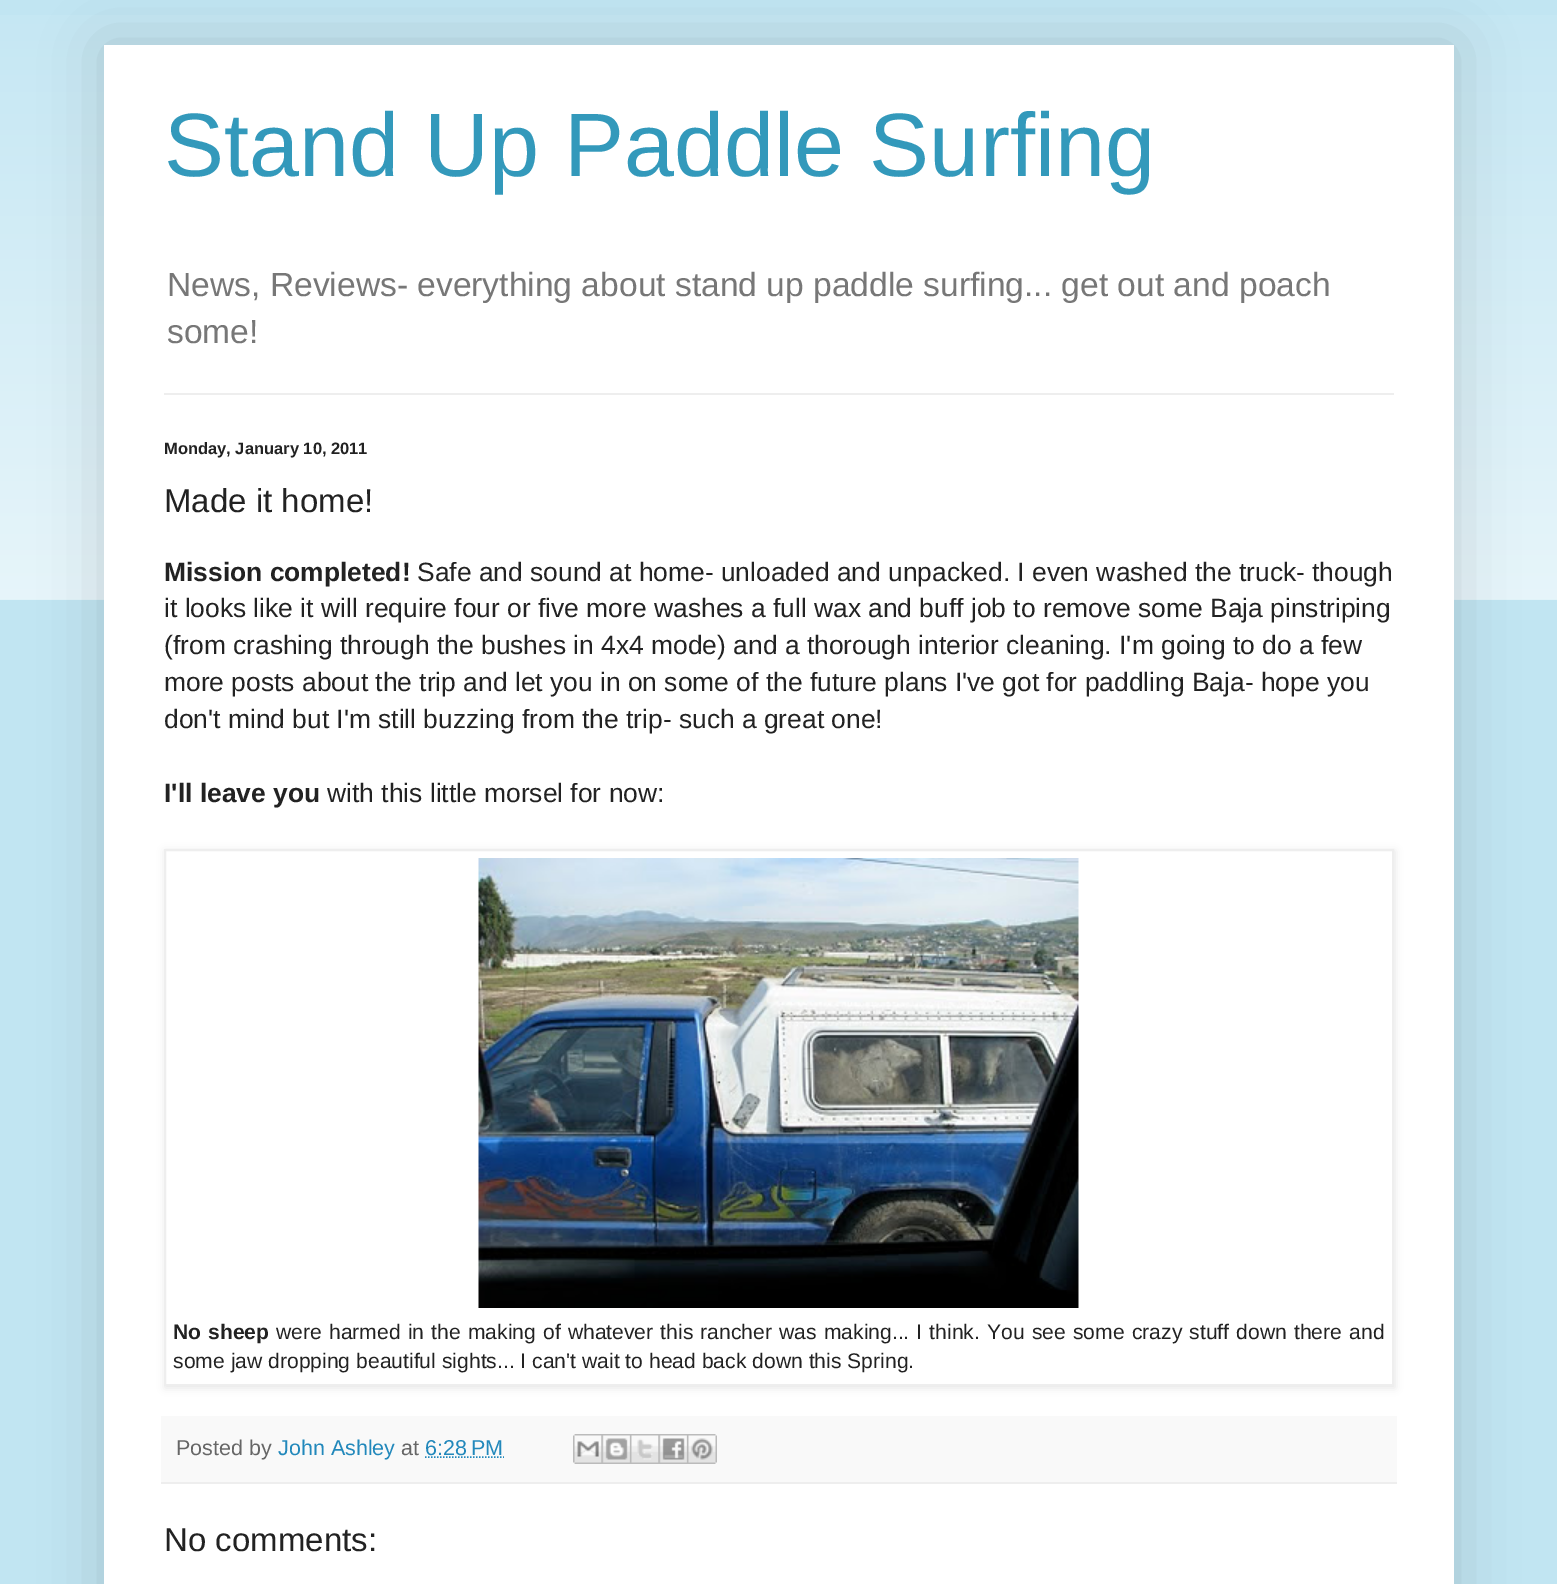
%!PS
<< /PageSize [1557 1584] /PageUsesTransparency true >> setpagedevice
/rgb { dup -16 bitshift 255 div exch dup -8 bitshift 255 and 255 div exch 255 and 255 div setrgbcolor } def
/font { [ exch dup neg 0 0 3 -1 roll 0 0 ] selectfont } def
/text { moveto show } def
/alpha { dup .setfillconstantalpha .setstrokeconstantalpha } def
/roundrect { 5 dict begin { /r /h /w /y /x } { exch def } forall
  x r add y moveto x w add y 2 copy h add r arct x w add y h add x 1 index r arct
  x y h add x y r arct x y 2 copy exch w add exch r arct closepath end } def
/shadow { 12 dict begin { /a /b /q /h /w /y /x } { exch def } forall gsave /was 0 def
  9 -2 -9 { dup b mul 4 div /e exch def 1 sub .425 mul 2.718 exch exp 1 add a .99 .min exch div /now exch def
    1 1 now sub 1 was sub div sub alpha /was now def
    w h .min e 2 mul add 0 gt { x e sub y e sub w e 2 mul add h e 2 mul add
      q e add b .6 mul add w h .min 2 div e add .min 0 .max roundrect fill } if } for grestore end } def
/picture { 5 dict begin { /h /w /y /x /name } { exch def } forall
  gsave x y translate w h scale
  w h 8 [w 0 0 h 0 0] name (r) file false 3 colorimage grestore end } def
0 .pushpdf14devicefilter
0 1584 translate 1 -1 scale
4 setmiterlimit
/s1 { /LiberationSans-Regular 90 font 16#3399BB rgb } def
/s2 { /LiberationSans-Regular 33.6 font 16#777777 rgb } def
/s3 { /LiberationSans-Bold 16.5 font 16#222222 rgb } def
/s4 { /LiberationSans-Regular 33 font 16#222222 rgb } def
/s5 { /LiberationSans-Bold 26.4 font 16#222222 rgb } def
/s6 { /LiberationSans-Regular 26.4 font 16#222222 rgb } def
/s7 { /LiberationSans-Regular 21.12 font 16#222222 rgb } def
/s8 { /LiberationSans-Regular 21.5 font 16#666666 rgb } def
/s9 { /LiberationSans-Regular 21.5 font 16#2288BB rgb } def
16#C1E5F2 rgb
0 0 1557 1584 rectfill
(pic1.raw) 0 15 1557 585 picture
16#000000 rgb
104 45 1350 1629 0 30 0.15 shadow
16#FFFFFF rgb
104 45 1350 1539 rectfill
s1
(Stand Up Paddle Surfing) 164 176 text
s2
(News, Reviews- everything about stand up paddle surfing... get out and poach) 167 296 text
(some!) 167 343 text
16#EEEEEE rgb
164 393 1230 2 rectfill
s3
(Monday, January 10, 2011) 164 454 text
s4
(Made it home!) 164 512 text
s5
(Mission completed!) 164 581 text
s6
(Safe and sound at home- unloaded and unpacked. I even washed the truck- though) 417 581 text
(it looks like it will require four or five more washes a full wax and buff job to remove some Baja pinstriping) 164 617 text
(\(from crashing through the bushes in 4x4 mode\) and a thorough interior cleaning. I'm going to do a few) 164 654 text
(more posts about the trip and let you in on some of the future plans I've got for paddling Baja- hope you) 164 691 text
(don't mind but I'm still buzzing from the trip- such a great one!) 164 728 text
s5
(I'll leave you) 164 802 text
s6
(with this little morsel for now:) 327 802 text
16#000000 rgb
165 851 1230 537 0 4 0.1 shadow
16#FFFFFF rgb
165 850 moveto 1393 850 lineto 1393 1385 lineto 165 1385 lineto closepath gsave fill grestore
16#EEEEEE rgb
2 setlinewidth
stroke
(pic2.raw) 478 858 601 450 picture
/LiberationSans-Bold 21.12 font
16#222222 rgb
173 1339 moveto 1 0 32 (No sheep) widthshow
/LiberationSans-Regular 21.12 font
276 1339 moveto 1.25 0 32 (were harmed in the making of whatever this rancher was making... I think. You see some crazy stuff down there and) widthshow
(some jaw dropping beautiful sights... I can't wait to head back down this Spring.) 173 1368 text
16#F9F9F9 rgb
161 1416 1236 66 rectfill
16#EEEEEE rgb
161 1482 1236 2 rectfill
s8
(Posted by) 176 1455 text
s9
(John Ashley) 278 1455 text
s8
(at) 401 1455 text
s9
(6:28 PM) 425 1455 text
1.5 setlinewidth
[1.5 1.5] 0 setdash
425 1457 moveto 504 1457 lineto stroke
(pic3.raw) 573 1434 29 30 picture
(pic4.raw) 601 1434 29 30 picture
(pic5.raw) 630 1434 29 30 picture
(pic6.raw) 658 1434 29 30 picture
(pic7.raw) 687 1434 30 30 picture
s4
(No comments:) 164 1551 text
.poppdf14devicefilter showpage
